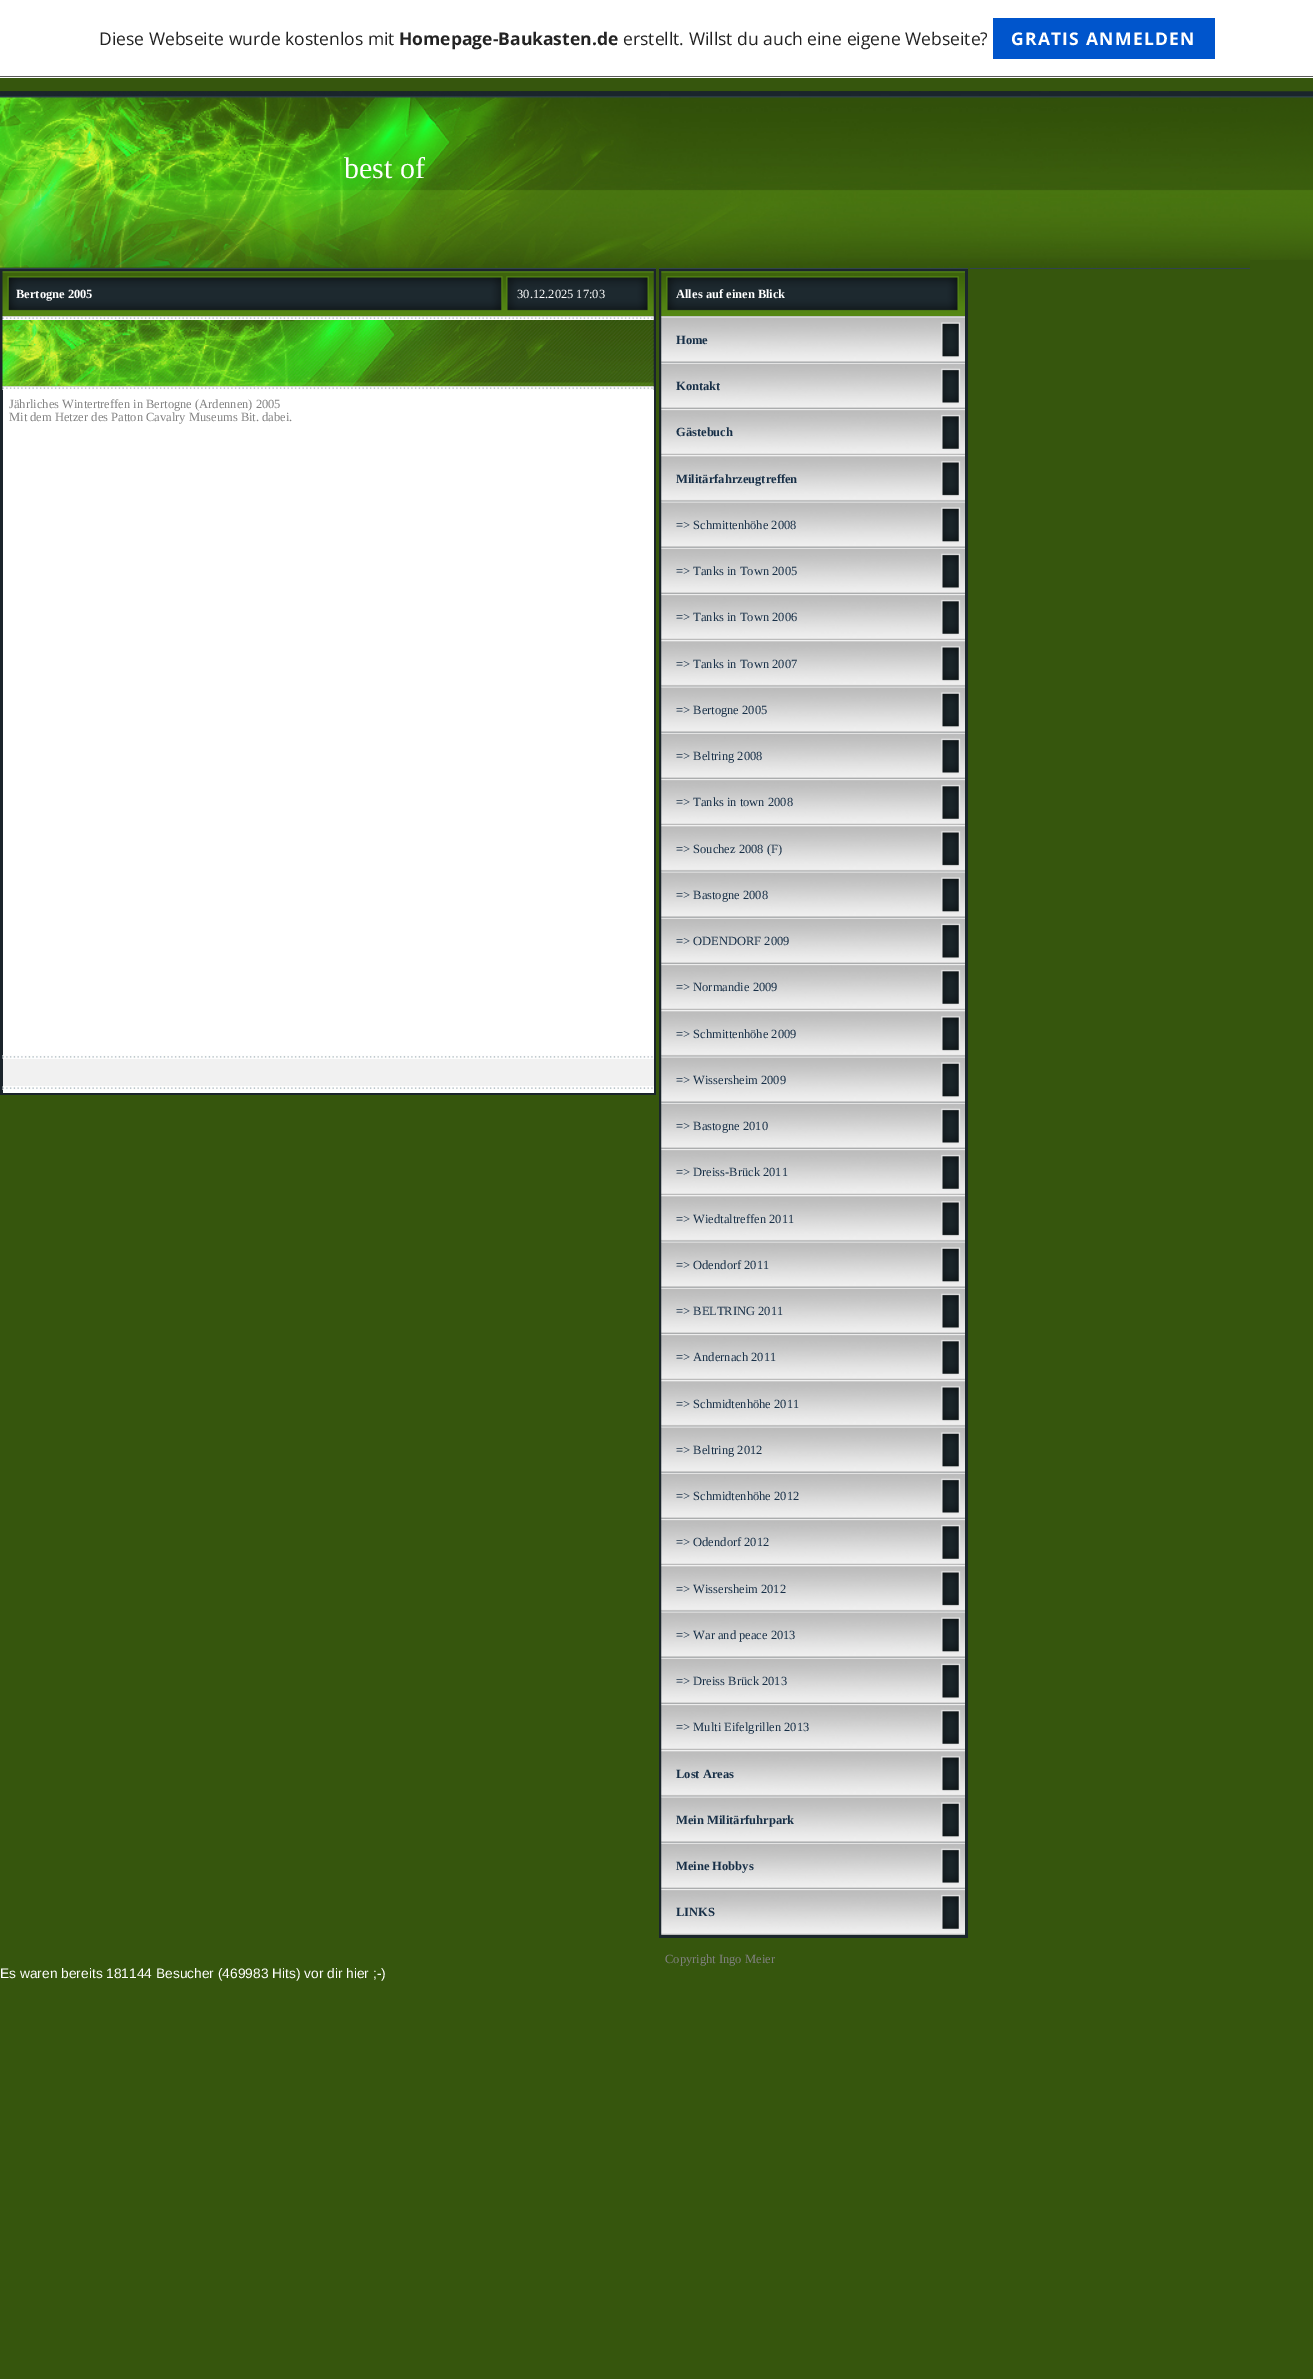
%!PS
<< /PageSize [1313 2379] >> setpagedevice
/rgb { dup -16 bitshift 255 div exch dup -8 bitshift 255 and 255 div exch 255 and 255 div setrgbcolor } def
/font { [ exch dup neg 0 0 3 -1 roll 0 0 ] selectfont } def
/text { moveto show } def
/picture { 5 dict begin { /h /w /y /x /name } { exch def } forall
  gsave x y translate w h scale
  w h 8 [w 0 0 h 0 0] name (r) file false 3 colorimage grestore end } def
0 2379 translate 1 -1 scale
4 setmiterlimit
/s1 { /OpenSans-Regular 17.5 font 16#232323 rgb } def
/s2 { /OpenSans-Bold 17.5 font 16#232323 rgb } def
/s3 { /LiberationSerif-Regular 30 font 16#FFFFFF rgb } def
/s4 { /LiberationSerif-Bold 12.5 font 16#FFFFFF rgb } def
/s5 { /LiberationSerif-Regular 12.5 font 16#FFFFFF rgb } def
/s6 { /LiberationSerif-Regular 12.5 font 16#818181 rgb } def
/s7 { /LiberationSerif-Bold 12.5 font 16#172F47 rgb } def
/s8 { /LiberationSerif-Regular 12.5 font 16#172F47 rgb } def
/s9 { /LiberationSans-Regular 13.75 font 16#FFFFFF rgb } def
16#36560D rgb
0 0 1313 2379 rectfill
16#FFFFFF rgb
0 0 1313 78 rectfill
16#5A5A5A rgb
0 76 1313 1 rectfill
s1
(Diese Webseite wurde kostenlos mit) 99 45 text
s2
(Homepage-Baukasten.de) 399 45 text
s1
(erstellt. Willst du auch eine eigene Webseite?) 623 45 text
16#0055CC rgb
993 18 222 41 rectfill
/OpenSans-Bold 17.5 font
16#FFFFFF rgb
1011 45 moveto 1.25 0 (GRATIS ANMELDEN) ashow
(pic1.raw) 0 91 1313 169 picture
(pic2.raw) 0 91 1250 177 picture
s3
(best of) 344 178 text
16#31434D rgb
0 268 656 1 rectfill
659 268 309 1 rectfill
970 268 280 1 rectfill
16#1B242B rgb
0 269 656 826 rectfill
(pic3.raw) 2 271 652 46 picture
s4
(Bertogne 2005) 16 298 text
s5
(30.12.2025 17:03) 517 298 text
(pic4.raw) 2 316 652 4 picture
(pic5.raw) 2 320 652 67 picture
(pic6.raw) 2 386 652 4 picture
3 390 651 669 rectfill
s6
(Jährliches Wintertreffen in Bertogne \(Ardennen\) 2005) 9 408 text
(Mit dem Hetzer des Patton Cavalry Museums Bit. dabei.) 9 421 text
(pic7.raw) 2 1055 651 4 picture
16#F1F1F1 rgb
3 1059 651 27 rectfill
16#FFFFFF rgb
3 1086 651 7 rectfill
(pic8.raw) 2 1086 651 4 picture
16#1B262C rgb
659 269 309 1669 rectfill
(pic9.raw) 661 271 304 46 picture
s4
(Alles auf einen Blick) 676 298 text
(pic10.raw) 661 316 304 47 picture
s7
(Home) 676 344 text
(pic11.raw) 661 362 304 47 picture
(Kontakt) 676 390 text
(pic12.raw) 661 408 304 47 picture
(Gästebuch) 676 436 text
(pic13.raw) 661 455 304 47 picture
(Militärfahrzeugtreffen) 676 483 text
(pic14.raw) 661 501 304 47 picture
s8
(=> Schmittenhöhe 2008) 676 529 text
(pic11.raw) 661 547 304 47 picture
(=> Tanks in Town 2005) 676 575 text
(pic12.raw) 661 593 304 47 picture
(=> Tanks in Town 2006) 676 621 text
(pic13.raw) 661 640 304 47 picture
(=> Tanks in Town 2007) 676 668 text
(pic14.raw) 661 686 304 47 picture
(=> Bertogne 2005) 676 714 text
(pic11.raw) 661 732 304 47 picture
(=> Beltring 2008) 676 760 text
(pic15.raw) 661 778 304 47 picture
(=> Tanks in town 2008) 676 806 text
(pic13.raw) 661 825 304 47 picture
(=> Souchez 2008 \(F\)) 676 853 text
(pic14.raw) 661 871 304 47 picture
(=> Bastogne 2008) 676 899 text
(pic11.raw) 661 917 304 47 picture
(=> ODENDORF 2009) 676 945 text
(pic12.raw) 661 963 304 47 picture
(=> Normandie 2009) 676 991 text
(pic13.raw) 661 1010 304 47 picture
(=> Schmittenhöhe 2009) 676 1038 text
(pic14.raw) 661 1056 304 47 picture
(=> Wissersheim 2009) 676 1084 text
(pic11.raw) 661 1102 304 47 picture
(=> Bastogne 2010) 676 1130 text
(pic16.raw) 661 1148 304 47 picture
(=> Dreiss-Brück 2011) 676 1176 text
(pic13.raw) 661 1195 304 47 picture
(=> Wiedtaltreffen 2011) 676 1223 text
(pic14.raw) 661 1241 304 47 picture
(=> Odendorf 2011) 676 1269 text
(pic11.raw) 661 1287 304 47 picture
(=> BELTRING 2011) 676 1315 text
(pic12.raw) 661 1333 304 47 picture
(=> Andernach 2011) 676 1361 text
(pic13.raw) 661 1380 304 47 picture
(=> Schmidtenhöhe 2011) 676 1408 text
(pic14.raw) 661 1426 304 47 picture
(=> Beltring 2012) 676 1454 text
(pic11.raw) 661 1472 304 47 picture
(=> Schmidtenhöhe 2012) 676 1500 text
(pic12.raw) 661 1518 304 47 picture
(=> Odendorf 2012) 676 1546 text
(pic13.raw) 661 1565 304 47 picture
(=> Wissersheim 2012) 676 1593 text
(pic14.raw) 661 1611 304 47 picture
(=> War and peace 2013) 676 1639 text
(pic11.raw) 661 1657 304 47 picture
(=> Dreiss Brück 2013) 676 1685 text
(pic12.raw) 661 1703 304 47 picture
(=> Multi Eifelgrillen 2013) 676 1731 text
(pic13.raw) 661 1750 304 47 picture
s7
(Lost Areas) 676 1778 text
(pic14.raw) 661 1796 304 47 picture
(Mein Militärfuhrpark) 676 1824 text
(pic17.raw) 661 1842 304 47 picture
(Meine Hobbys) 676 1870 text
(pic12.raw) 661 1888 304 47 picture
(LINKS) 676 1916 text
s6
(Copyright Ingo Meier) 665 1963 text
s9
(Es waren bereits 181144 Besucher \(469983 Hits\) vor dir hier ;-\)) 0 1978 text
showpage
